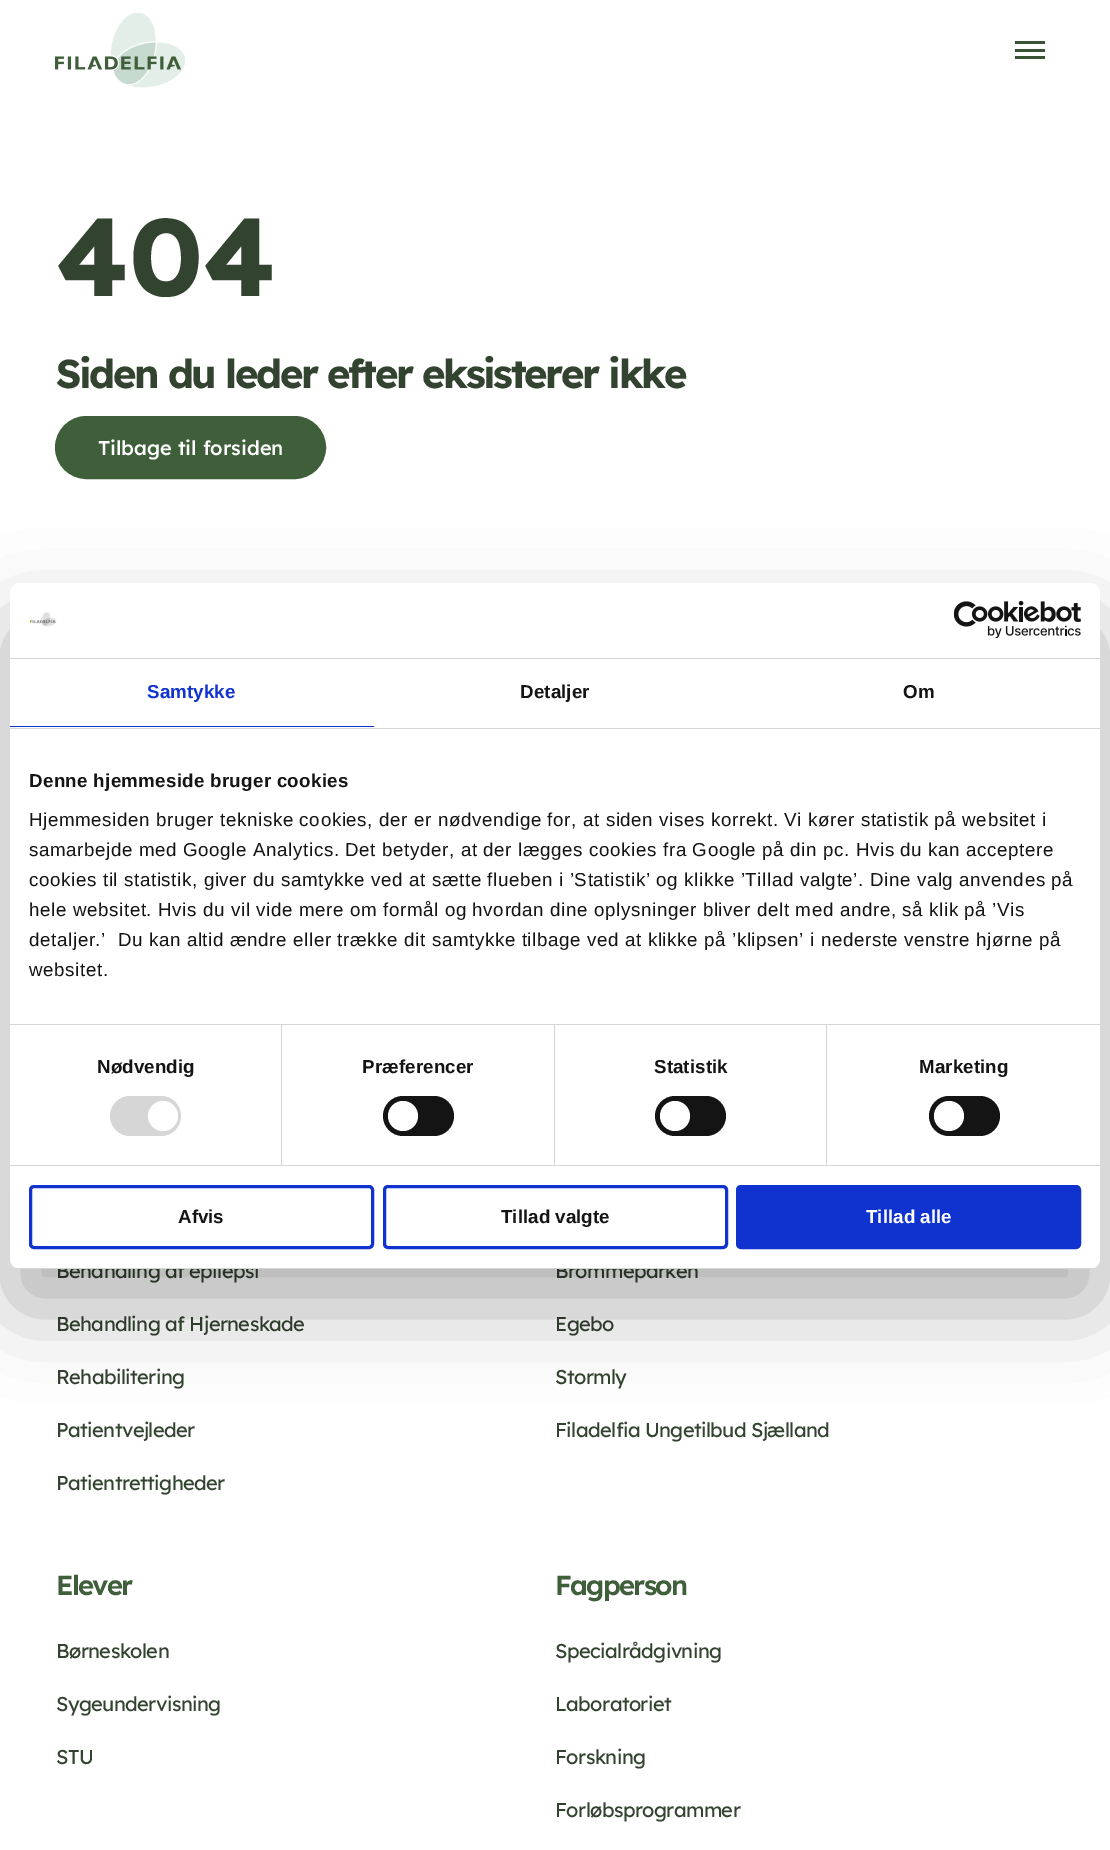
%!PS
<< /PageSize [1110 1850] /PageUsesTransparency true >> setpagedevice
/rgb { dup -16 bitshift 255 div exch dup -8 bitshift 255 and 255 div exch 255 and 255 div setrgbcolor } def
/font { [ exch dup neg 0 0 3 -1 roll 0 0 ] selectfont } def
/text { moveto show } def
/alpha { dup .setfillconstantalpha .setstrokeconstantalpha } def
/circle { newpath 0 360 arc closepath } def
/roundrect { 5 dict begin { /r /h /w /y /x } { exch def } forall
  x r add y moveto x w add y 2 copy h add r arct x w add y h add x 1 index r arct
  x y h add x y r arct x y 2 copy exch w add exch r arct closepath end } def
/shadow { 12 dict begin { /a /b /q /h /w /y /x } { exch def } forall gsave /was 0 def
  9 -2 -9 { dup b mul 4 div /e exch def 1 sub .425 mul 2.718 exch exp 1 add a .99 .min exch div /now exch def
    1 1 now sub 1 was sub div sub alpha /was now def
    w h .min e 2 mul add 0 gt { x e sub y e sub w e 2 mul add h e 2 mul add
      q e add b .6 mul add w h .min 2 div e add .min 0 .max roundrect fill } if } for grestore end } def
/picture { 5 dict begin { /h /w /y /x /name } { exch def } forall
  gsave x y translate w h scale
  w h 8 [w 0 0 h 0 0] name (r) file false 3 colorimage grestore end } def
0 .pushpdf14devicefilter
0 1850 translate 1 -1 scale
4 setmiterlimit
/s1 { /Lexend-Bold 110 font 16#32432F rgb } def
/s2 { /Lexend-Medium 20 font 16#FFFFFF rgb } def
/s3 { /LiberationSans-Bold 18.75 font 16#141414 rgb } def
/s4 { /LiberationSans-Bold 18.75 font 16#FFFFFF rgb } def
16#FFFFFF rgb
0 0 1110 1850 rectfill
(pic1.raw) 55 13 130 75 picture
16#385434 rgb
1015 41 30 3 rectfill
1015 49 30 3 rectfill
1015 56 30 3 rectfill
s1
(404) 56 296 text
/Lexend-Bold 40 font
56 388 moveto -2.4 0 (Siden du leder efter eksisterer ikke) ashow
16#3F5E3A rgb
56.5 417.5 268 60 30 roundrect gsave fill grestore
3 setlinewidth
stroke
s2
(Tilbage til forsiden) 98 455 text
/Lexend-Regular 20 font
16#32432F rgb
56 1278 moveto -0.6 0 (Behandling af epilepsi) ashow
56 1331 moveto -0.6 0 (Behandling af Hjerneskade) ashow
56 1384 moveto -0.6 0 (Rehabilitering) ashow
56 1437 moveto -0.6 0 (Patientvejleder) ashow
56 1490 moveto -0.6 0 (Patientrettigheder) ashow
555 1278 moveto -0.6 0 (Brommeparken) ashow
555 1331 moveto -0.6 0 (Egebo) ashow
555 1384 moveto -0.6 0 (Stormly) ashow
555 1437 moveto -0.6 0 (Filadelfia Ungetilbud Sjælland) ashow
/Lexend-SemiBold 27.5 font
16#3F5E3A rgb
56 1595 moveto -1.75 0 (Elever) ashow
/Lexend-Regular 20 font
16#32432F rgb
56 1658 moveto -0.6 0 (Børneskolen) ashow
56 1711 moveto -0.6 0 (Sygeundervisning) ashow
56 1764 moveto -0.6 0 (STU) ashow
/Lexend-SemiBold 27.5 font
16#3F5E3A rgb
555 1595 moveto -1.75 0 (Fagperson) ashow
/Lexend-Regular 20 font
16#32432F rgb
555 1658 moveto -0.6 0 (Specialrådgivning) ashow
555 1711 moveto -0.6 0 (Laboratoriet) ashow
555 1764 moveto -0.6 0 (Forskning) ashow
555 1817 moveto -0.6 0 (Forløbsprogrammer) ashow
16#000000 rgb
10 623 1090 686 10 42.5 0.3 shadow
16#FFFFFF rgb
10 583 1090 686 10 roundrect fill
16#D6D6D6 rgb
10 658 1090 1 rectfill
(pic2.raw) 29 612 28 15 picture
(pic3.raw) 954 601 127 38 picture
10 728 1090 1 rectfill
16#1032CF rgb
10 726 364 1 rectfill
/LiberationSans-Bold 18.75 font
147 698 moveto 0.1 0 (Samtykke) ashow
16#141414 rgb
520 698 moveto 0.1 0 (Detaljer) ashow
903 698 moveto 0.1 0 (Om) ashow
16#D6D6D6 rgb
10 1024 1090 1 rectfill
16#141414 rgb
29 787 moveto 0.3 0 (Denne hjemmeside bruger cookies) ashow
/LiberationSans-Regular 18.75 font
29 826 moveto 0.62 0 (Hjemmesiden bruger tekniske cookies, der er nødvendige for, at siden vises korrekt. Vi kører statistik på websitet i) ashow
29 856 moveto 0.62 0 (samarbejde med Google Analytics. Det betyder, at der lægges cookies fra Google på din pc. Hvis du kan acceptere) ashow
29 886 moveto 0.62 0 (cookies til statistik, giver du samtykke ved at sætte flueben i ’Statistik’ og klikke ’Tillad valgte’. Dine valg anvendes på) ashow
29 916 moveto 0.62 0 (hele websitet. Hvis du vil vide mere om formål og hvordan dine oplysninger bliver delt med andre, så klik på ’Vis) ashow
29 946 moveto 0.62 0 (detaljer.’  Du kan altid ændre eller trække dit samtykke tilbage ved at klikke på ’klipsen’ i nederste venstre hjørne på) ashow
29 976 moveto 0.62 0 (websitet.) ashow
16#D6D6D6 rgb
10 1165 1090 1 rectfill
281 1025 1 140 rectfill
/LiberationSans-Bold 18.75 font
16#141414 rgb
97 1073 moveto 0.1 0 (Nødvendig) ashow
16#D6D6D6 rgb
110 1096 71 40 20 roundrect fill
16#FFFFFF rgb
163 1116 15 circle fill
16#D6D6D6 rgb
554 1025 1 140 rectfill
16#141414 rgb
362 1073 moveto 0.1 0 (Præferencer) ashow
383 1096 71 40 20 roundrect fill
16#FFFFFF rgb
403 1116 15 circle fill
16#D6D6D6 rgb
826 1025 1 140 rectfill
16#141414 rgb
654 1073 moveto 0.1 0 (Statistik) ashow
655 1096 71 40 20 roundrect fill
16#FFFFFF rgb
675 1116 15 circle fill
16#141414 rgb
919 1073 moveto 0.1 0 (Marketing) ashow
929 1096 71 40 20 roundrect fill
16#FFFFFF rgb
949 1116 15 circle fill
gsave
10 583 1090 686 10 roundrect clip newpath
16#D6D6D6 rgb
10 1268 1090 1 rectfill
grestore
16#1032CF rgb
30.5 1186.5 342 61 3.5 roundrect stroke
s3
(Afvis) 178 1223 text
16#1032CF rgb
384.5 1186.5 342 61 3.5 roundrect stroke
s3
(Tillad valgte) 501 1223 text
16#1032CF rgb
737.5 1186.5 342 61 3.5 roundrect gsave fill grestore
stroke
s4
(Tillad alle) 866 1223 text
.poppdf14devicefilter showpage
